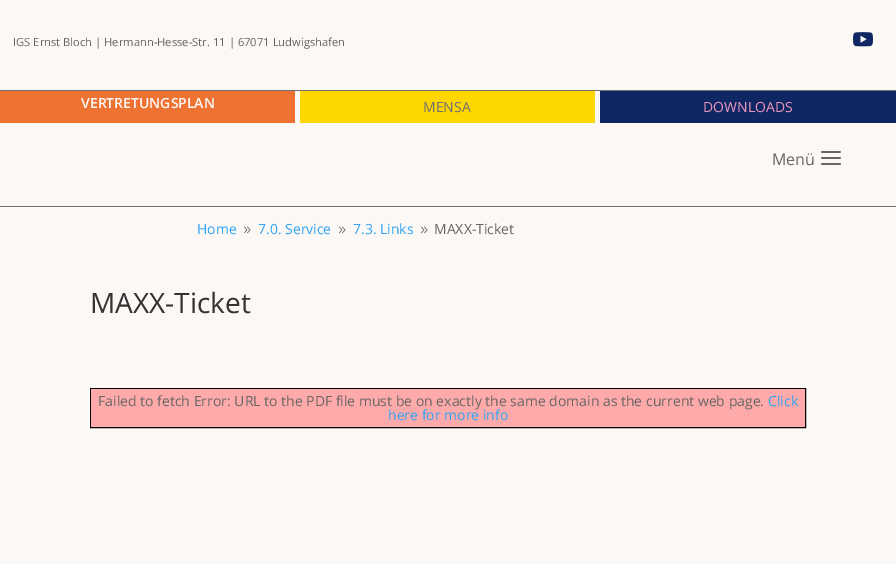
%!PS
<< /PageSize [896 564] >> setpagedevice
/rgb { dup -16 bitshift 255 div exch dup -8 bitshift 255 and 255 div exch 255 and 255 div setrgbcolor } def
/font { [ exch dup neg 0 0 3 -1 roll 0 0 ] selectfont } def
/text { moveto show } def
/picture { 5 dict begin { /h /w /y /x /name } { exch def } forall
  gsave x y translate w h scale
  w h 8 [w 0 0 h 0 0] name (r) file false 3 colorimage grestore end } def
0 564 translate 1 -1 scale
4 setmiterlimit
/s1 { /OpenSans-Regular 11.2 font 16#666666 rgb } def
/s2 { /OpenSans-SemiBold 14 font 16#FCF8F6 rgb } def
/s3 { /OpenSans-Regular 14 font 16#707070 rgb } def
/s4 { /OpenSans-Regular 14 font 16#EC96BD rgb } def
/s5 { /OpenSans-Regular 16 font 16#666666 rgb } def
/s6 { /OpenSans-Regular 14 font 16#2EA3F2 rgb } def
/s7 { /OpenSans-Regular 14 font 16#666666 rgb } def
/s8 { /OpenSans-Regular 28 font 16#333333 rgb } def
16#FCF8F6 rgb
0 0 896 564 rectfill
16#707070 rgb
0 90 896 1 rectfill
s1
(IGS Ernst Bloch | Hermann-Hesse-Str. 11 | 67071 Ludwigshafen) 13 46 text
(pic1.raw) 853 32 20 15 picture
16#EE7231 rgb
0 91 295 32 rectfill
s2
(VERTRETUNGSPLAN) 81 108 text
16#FFD700 rgb
300 91 295 32 rectfill
s3
(MENSA) 423 112 text
16#0F2762 rgb
600 91 296 32 rectfill
s4
(DOWNLOADS) 703 112 text
16#707070 rgb
0 206 896 1 rectfill
s5
(Menü) 772 165 text
(pic2.raw) 821 151 20 14 picture
s6
(Home) 197 234 text
(pic3.raw) 244 226 7 8 picture
(7.0. Service) 258 234 text
(pic3.raw) 339 226 7 8 picture
(7.3. Links) 353 234 text
(pic3.raw) 421 226 7 8 picture
s7
(MAXX-Ticket) 434 234 text
s8
(MAXX-Ticket) 90 313 text
16#000000 rgb
90.5 388.5 715 39 rectstroke
16#FFAAAA rgb
91 389 714 38 rectfill
s7
(Failed to fetch Error: URL to the PDF file must be on exactly the same domain as the current web page.) 98 406 text
s6
(Click) 768 406 text
(here for more info) 388 420 text
showpage
